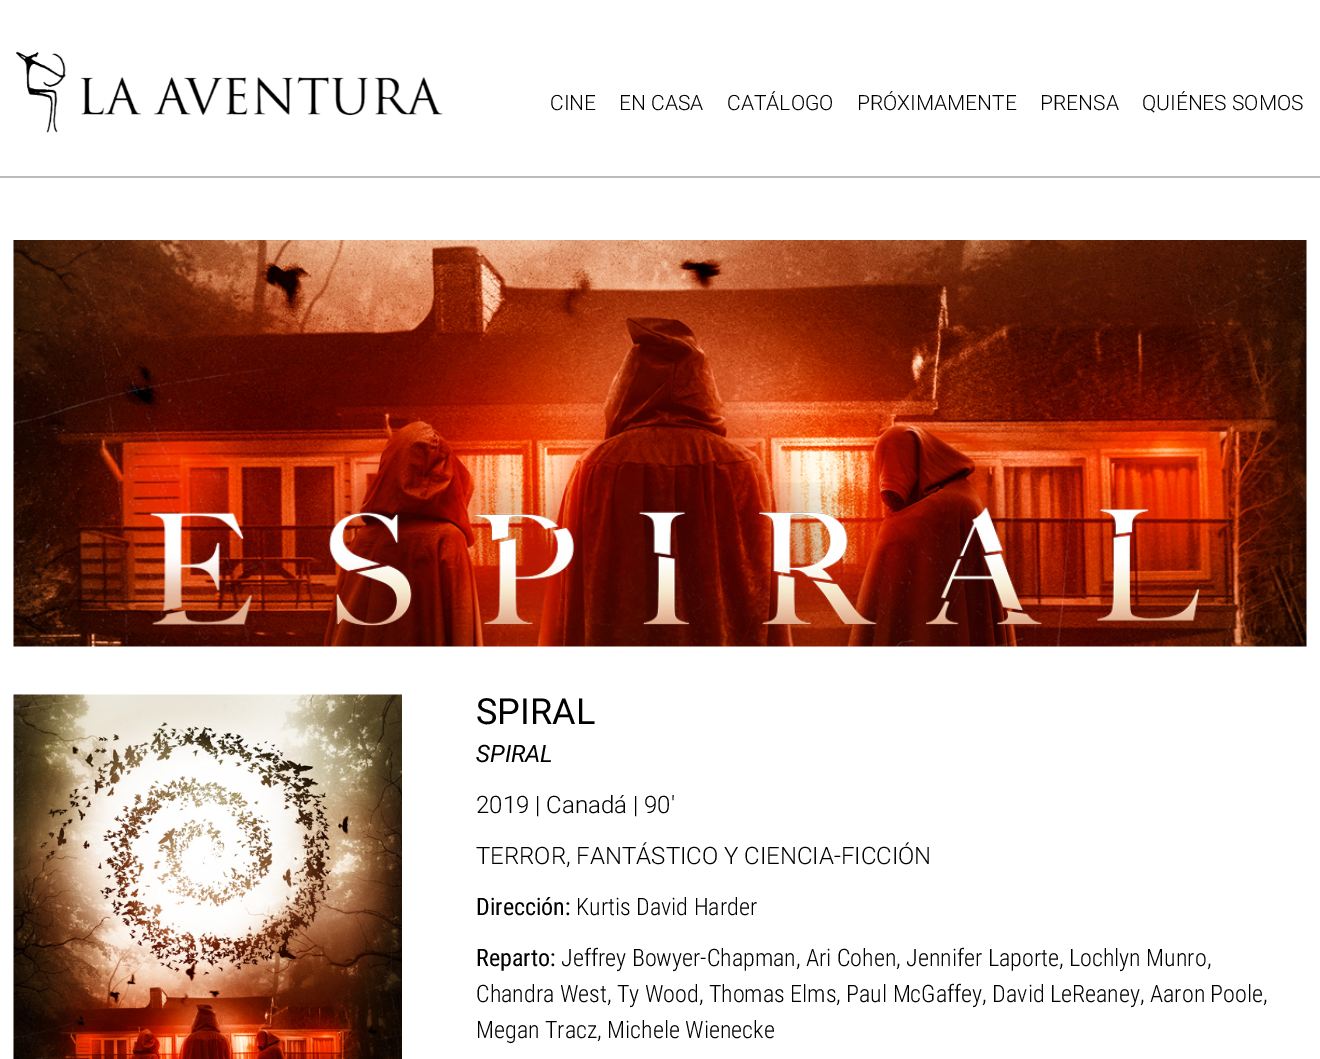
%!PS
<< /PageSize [1320 1059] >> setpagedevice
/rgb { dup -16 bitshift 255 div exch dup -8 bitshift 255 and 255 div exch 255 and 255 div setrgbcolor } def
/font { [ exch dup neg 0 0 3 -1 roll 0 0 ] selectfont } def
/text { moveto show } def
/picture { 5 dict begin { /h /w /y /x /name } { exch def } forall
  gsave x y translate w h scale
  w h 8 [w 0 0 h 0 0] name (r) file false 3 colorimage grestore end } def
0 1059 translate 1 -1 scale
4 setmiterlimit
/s1 { /Roboto-Light 21 font 16#000000 rgb } def
/s2 { /Roboto-Regular 36 font 16#000000 rgb } def
/s3 { /Roboto-Italic 24 font 16#000000 rgb } def
/s4 { /Roboto-Light 24 font 16#000000 rgb } def
/s5 { /RobotoCondensed-Regular 24 font 16#000000 rgb } def
/s6 { /RobotoCondensed-Light 24 font 16#000000 rgb } def
16#FFFFFF rgb
0 0 1320 1059 rectfill
16#BBBBBB rgb
0 176 1320 2 rectfill
(pic1.raw) 15 51 428 82 picture
s1
(CINE) 550 110 text
(EN CASA) 619 110 text
(CATÁLOGO) 727 110 text
(PRÓXIMAMENTE) 857 110 text
(PRENSA) 1040 110 text
(QUIÉNES SOMOS) 1142 110 text
(pic2.raw) 13 240 1294 407 picture
(pic3.raw) 13 694 389 365 picture
s2
(SPIRAL) 476 724 text
s3
(SPIRAL) 476 762 text
s4
(2019 | Canadá | 90') 476 813 text
(TERROR, FANTÁSTICO Y CIENCIA-FICCIÓN) 476 864 text
s5
(Dirección:) 476 915 text
s6
(Kurtis David Harder) 576 915 text
s5
(Reparto:) 476 966 text
s6
(Jeffrey Bowyer-Chapman, Ari Cohen, Jennifer Laporte, Lochlyn Munro,) 561 966 text
(Chandra West, Ty Wood, Thomas Elms, Paul McGaffey, David LeReaney, Aaron Poole,) 476 1002 text
(Megan Tracz, Michele Wienecke) 476 1038 text
showpage
